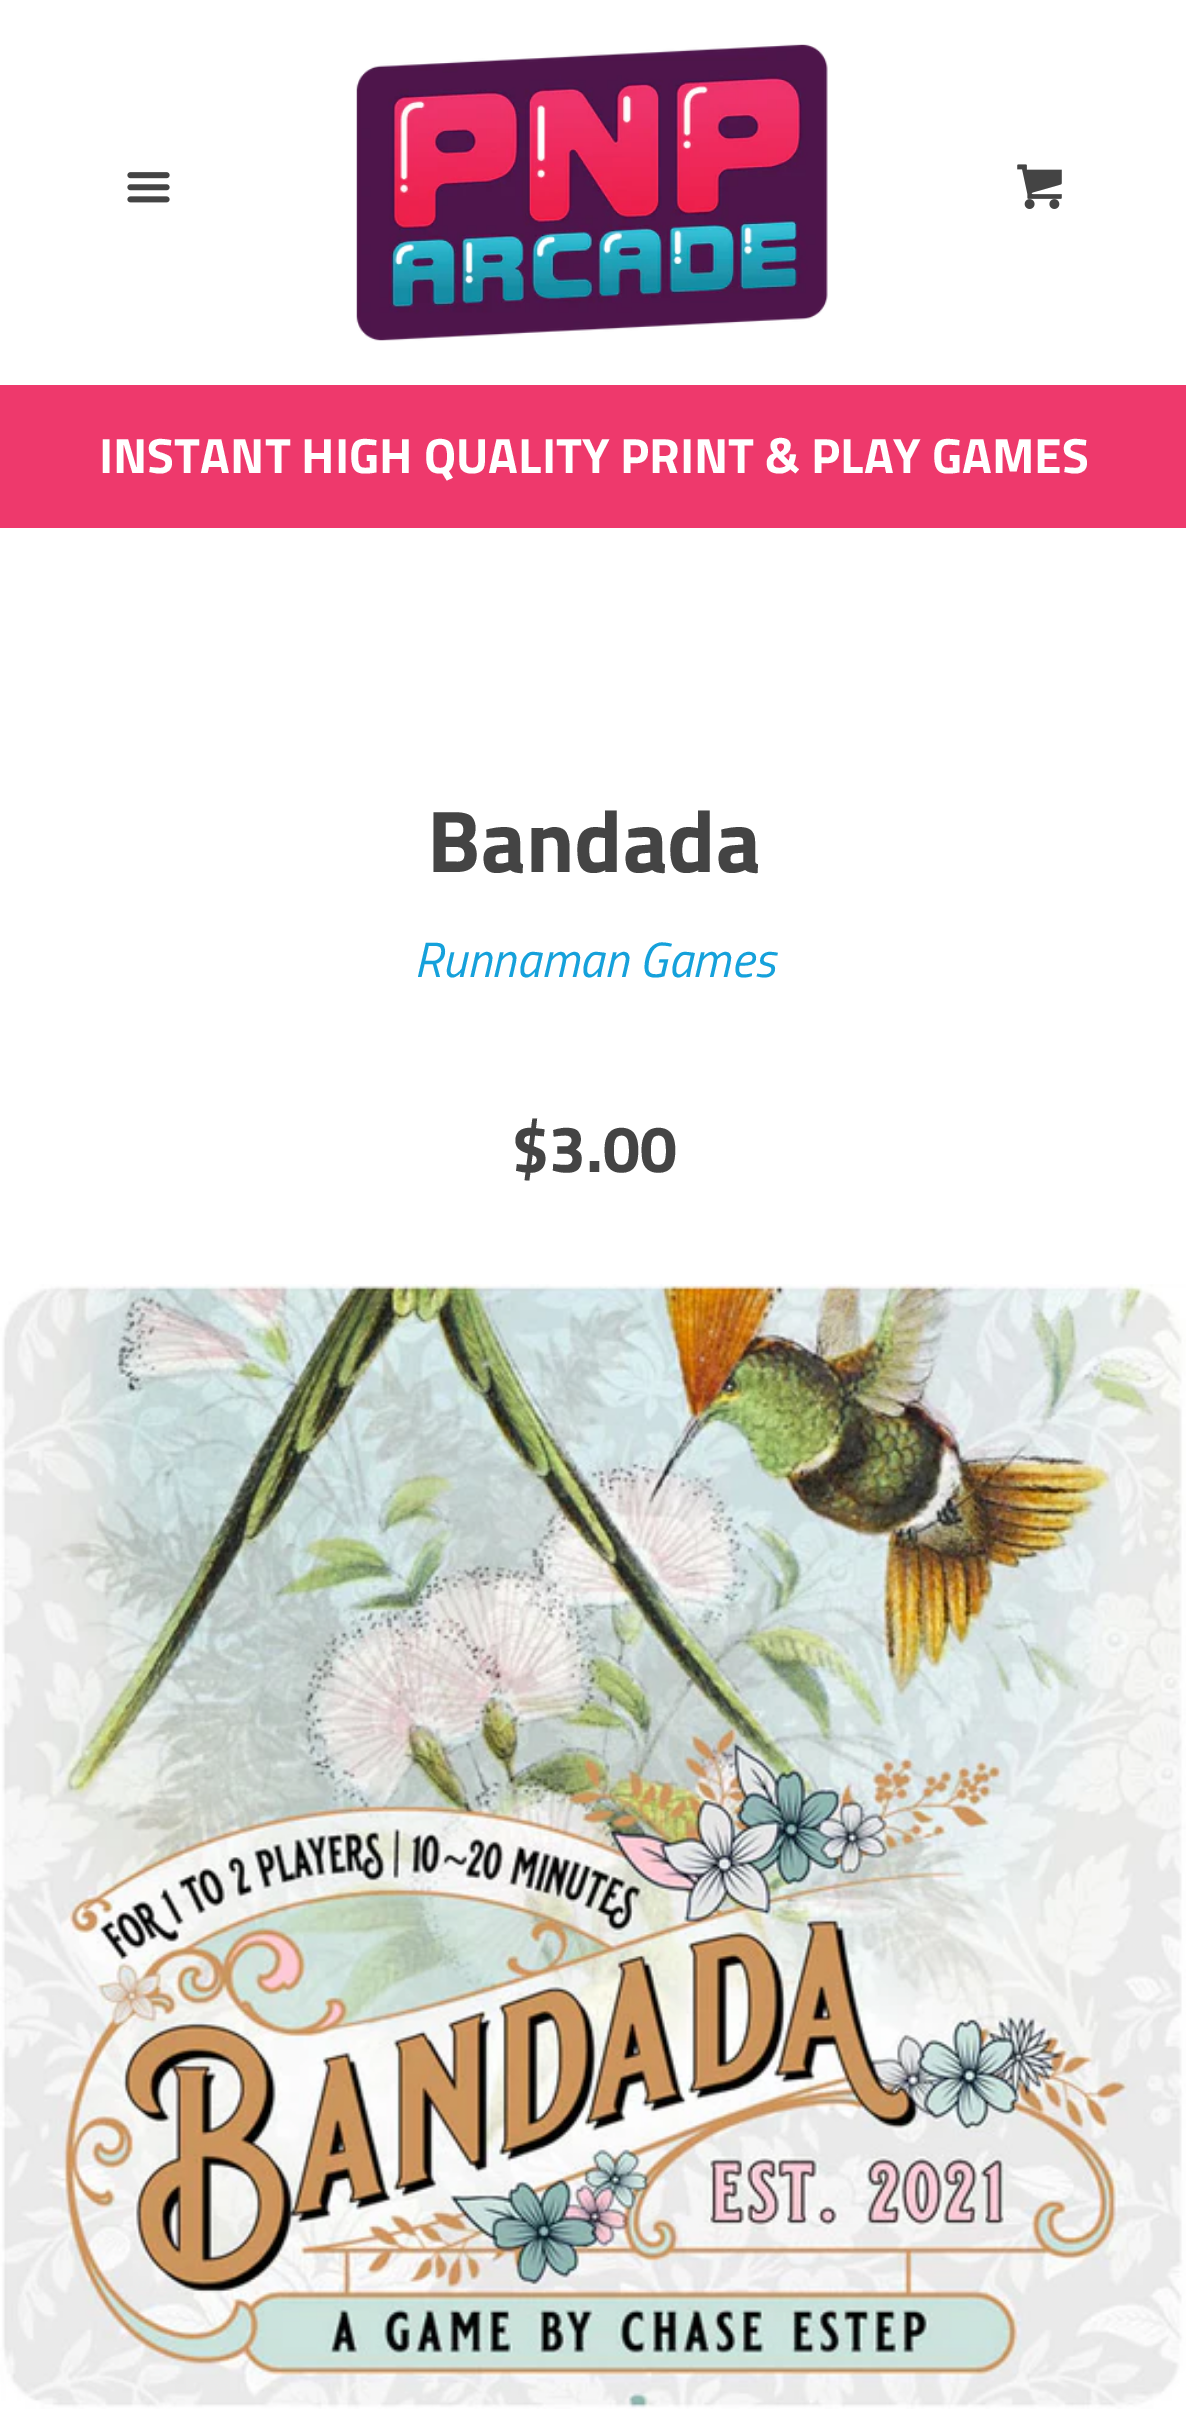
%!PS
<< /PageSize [1186 2436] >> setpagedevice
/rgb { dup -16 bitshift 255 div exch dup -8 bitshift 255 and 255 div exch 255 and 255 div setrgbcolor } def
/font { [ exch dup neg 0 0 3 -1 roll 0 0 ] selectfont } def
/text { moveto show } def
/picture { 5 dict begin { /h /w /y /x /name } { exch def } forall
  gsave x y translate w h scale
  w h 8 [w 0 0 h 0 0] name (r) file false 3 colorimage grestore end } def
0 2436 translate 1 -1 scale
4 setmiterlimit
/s1 { /TitilliumWeb-Bold 49.5 font 16#FFFFFF rgb } def
/s2 { /TitilliumWeb-Bold 88 font 16#444444 rgb } def
/s3 { /TitilliumWeb-Italic 49.5 font 16#15A1DB rgb } def
/s4 { /TitilliumWeb-Bold 66 font 16#444444 rgb } def
16#FFFFFF rgb
0 0 1186 2436 rectfill
(pic1.raw) 127 172 43 31 picture
(pic2.raw) 356 44 472 297 picture
(pic3.raw) 1017 164 45 45 picture
16#EE396C rgb
0 385 1186 143 rectfill
s1
(INSTANT HIGH QUALITY PRINT & PLAY GAMES) 99 473 text
s2
(Bandada) 427 872 text
s3
(Runnaman Games) 414 977 text
s4
($3.00) 512 1172 text
(pic4.raw) 0 1284 1186 1125 picture
showpage
